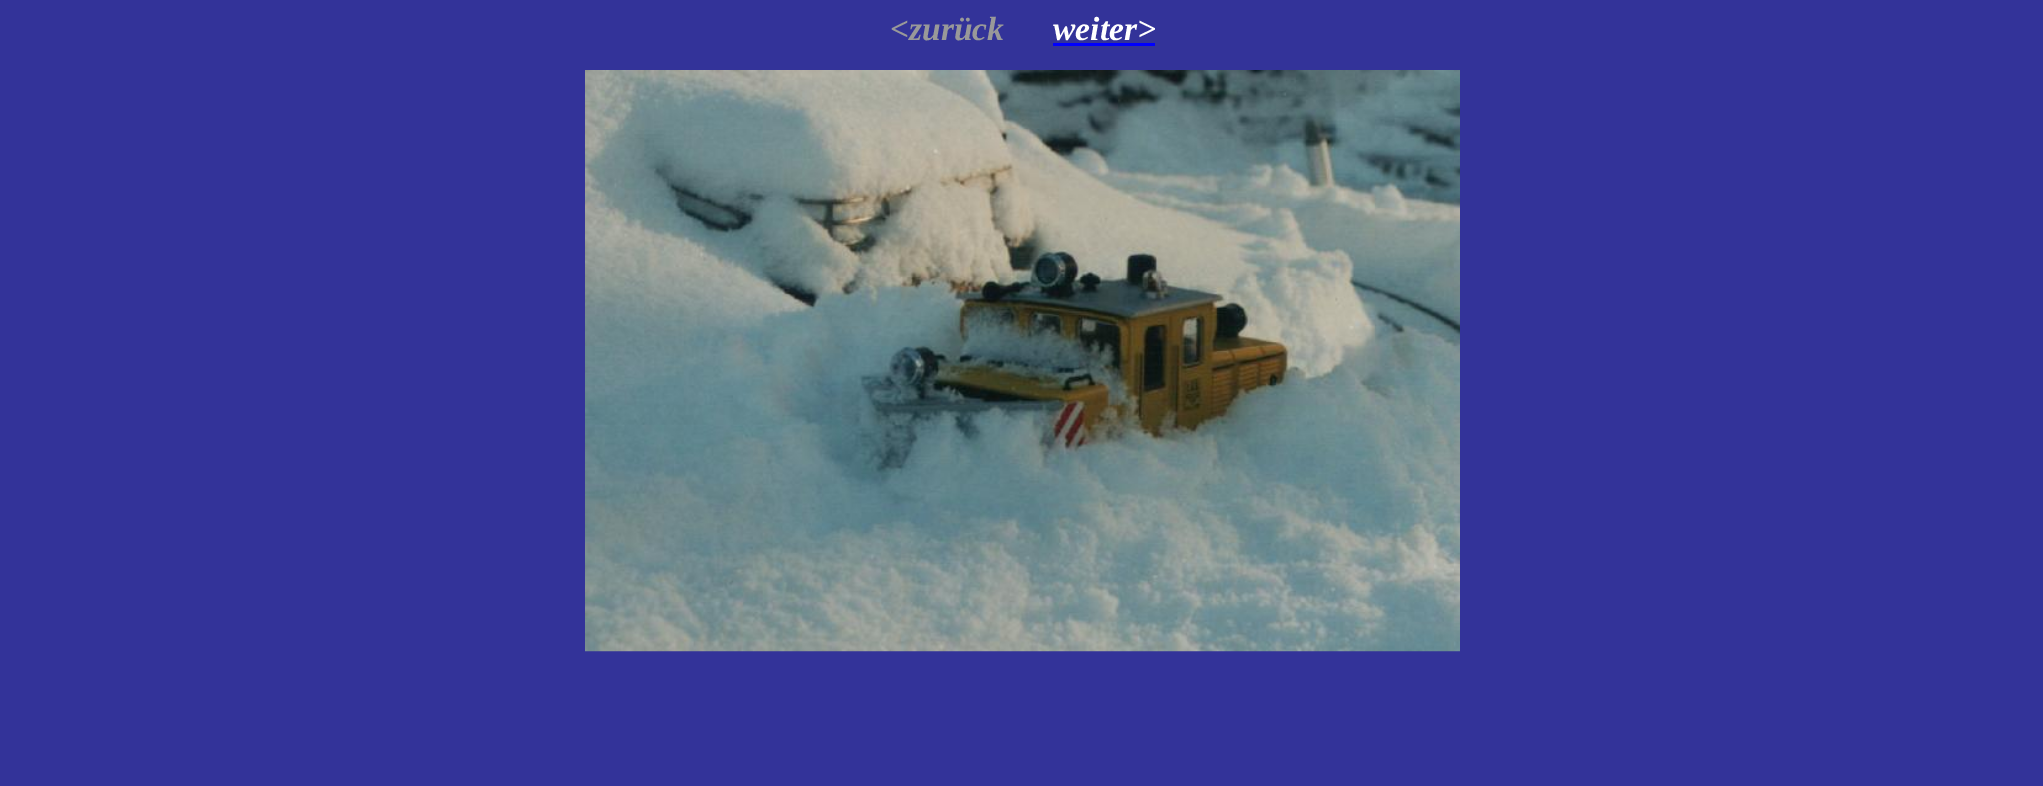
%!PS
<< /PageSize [2043 786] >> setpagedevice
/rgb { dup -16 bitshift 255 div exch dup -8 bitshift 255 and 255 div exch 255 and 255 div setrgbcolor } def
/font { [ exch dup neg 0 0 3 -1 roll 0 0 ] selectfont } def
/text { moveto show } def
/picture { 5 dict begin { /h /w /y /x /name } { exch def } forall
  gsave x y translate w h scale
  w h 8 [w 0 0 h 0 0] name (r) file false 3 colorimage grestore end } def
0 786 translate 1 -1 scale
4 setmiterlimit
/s1 { /LiberationSerif-BoldItalic 33.5 font 16#999999 rgb } def
/s2 { /LiberationSerif-BoldItalic 33.5 font 16#FFFFFF rgb } def
16#333399 rgb
0 0 2043 786 rectfill
s1
(<zurück) 890 40 text
s2
(weiter>) 1053 40 text
16#0000FF rgb
1053 43 102 3 rectfill
(pic1.raw) 585 70 875 582 picture
showpage
